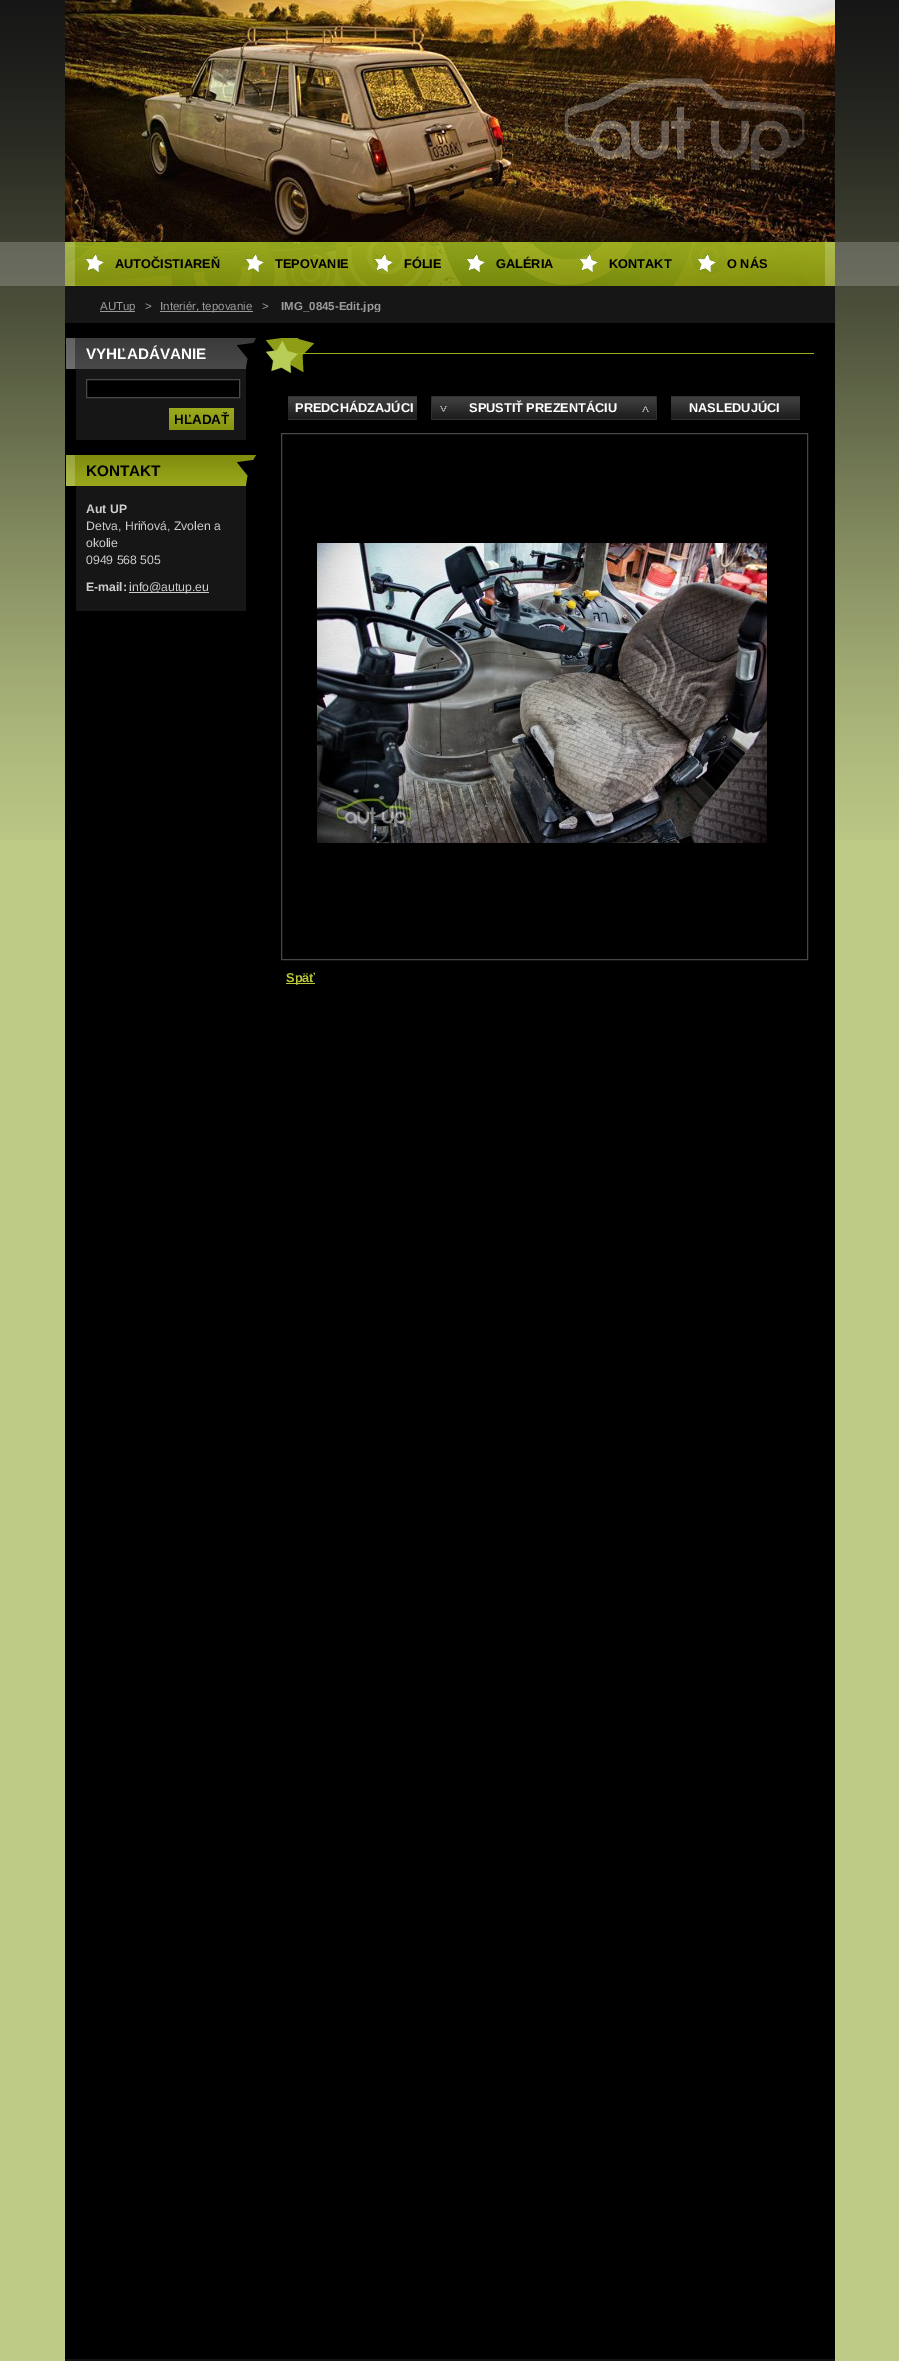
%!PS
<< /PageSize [899 2361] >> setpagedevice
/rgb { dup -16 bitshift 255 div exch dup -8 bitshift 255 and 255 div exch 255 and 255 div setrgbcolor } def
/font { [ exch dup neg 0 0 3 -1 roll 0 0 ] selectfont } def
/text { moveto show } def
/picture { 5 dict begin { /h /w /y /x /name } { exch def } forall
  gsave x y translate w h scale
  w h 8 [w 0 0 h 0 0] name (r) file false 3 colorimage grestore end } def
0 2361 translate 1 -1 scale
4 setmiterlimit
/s1 { /LiberationSans-Bold 12.75 font 16#000000 rgb } def
/s2 { /LiberationSans-Regular 11.5 font 16#9B9B9B rgb } def
/s3 { /LiberationSans-Bold 11.5 font 16#9B9B9B rgb } def
/s4 { /LiberationSans-Bold 15.25 font 16#FFFFFF rgb } def
/s5 { /LiberationSans-Bold 13.5 font 16#000000 rgb } def
/s6 { /LiberationSans-Bold 15.25 font 16#000000 rgb } def
/s7 { /LiberationSans-Bold 12.25 font 16#CDCDCD rgb } def
/s8 { /LiberationSans-Regular 12.25 font 16#CDCDCD rgb } def
/s9 { /LiberationSans-Bold 12.75 font 16#FFFFFF rgb } def
/s10 { /LiberationSans-Bold 12.75 font 16#B9C83A rgb } def
16#BECB87 rgb
0 0 899 2361 rectfill
(pic1.raw) 0 0 899 840 picture
16#000000 rgb
65 323 770 2036 rectfill
(pic2.raw) 65 0 770 242 picture
(pic3.raw) 65 242 770 44 picture
(pic4.raw) 86 254 18 18 picture
s1
(AUTOČISTIAREŇ) 115 268 text
(pic5.raw) 246 254 18 18 picture
(TEPOVANIE) 275 268 text
(pic6.raw) 375 254 18 18 picture
(FÓLIE) 404 268 text
(pic7.raw) 467 254 18 18 picture
(GALÉRIA) 496 268 text
(pic8.raw) 580 254 18 18 picture
(KONTAKT) 609 268 text
(pic9.raw) 698 254 18 18 picture
(O NÁS) 727 268 text
16#161616 rgb
65 286 770 37 rectfill
16#9B9B9B rgb
100 311 35 1 rectfill
gsave
100 300 450 12 rectclip
s2
(AUTup) 100 310 text
grestore
s2
(>) 145 310 text
160 311 93 1 rectfill
(Interiér, tepovanie) 160 310 text
(>) 262 310 text
gsave
100 300 450 12 rectclip
s3
(IMG_0845-Edit.jpg) 281 310 text
grestore
(pic10.raw) 66 338 190 31 picture
s4
(VYHĽADÁVANIE) 86 359 text
16#161616 rgb
76 369 170 71 rectfill
16#000000 rgb
86.5 379.5 moveto 239.5 379.5 lineto 239.5 397.5 lineto 86.5 397.5 lineto closepath gsave fill grestore
16#484848 rgb
stroke
(pic11.raw) 169 408 65 22 picture
s5
(HĽADAŤ) 174 424 text
(pic12.raw) 66 455 190 31 picture
s6
(KONTAKT) 86 476 text
16#161616 rgb
76 486 170 125 rectfill
s7
(Aut UP) 86 513 text
s8
(Detva, Hriňová, Zvolen a) 86 530 text
(okolie) 86 547 text
(0949 568 505) 86 564 text
s7
(E-mail:) 86 591 text
129 592 49 1 rectfill
s8
(info@aut) 129 591 text
178 592 31 1 rectfill
(up.eu) 178 591 text
(pic13.raw) 266 338 548 35 picture
(pic14.raw) 288 396 129 24 picture
s9
(PREDCHÁDZAJÚCI) 295 412 text
(pic15.raw) 431 396 226 24 picture
(SPUSTIŤ PREZENTÁCIU) 469 412 text
(pic14.raw) 671 396 129 24 picture
(NASLEDUJÚCI) 689 412 text
16#474747 rgb
281.5 433.5 526 526 rectstroke
(pic16.raw) 317 543 450 300 picture
16#B9C83A rgb
286 983 29 1 rectfill
(Späť) 286 982 text
16#141414 rgb
65 2359 770 2 rectfill
showpage
